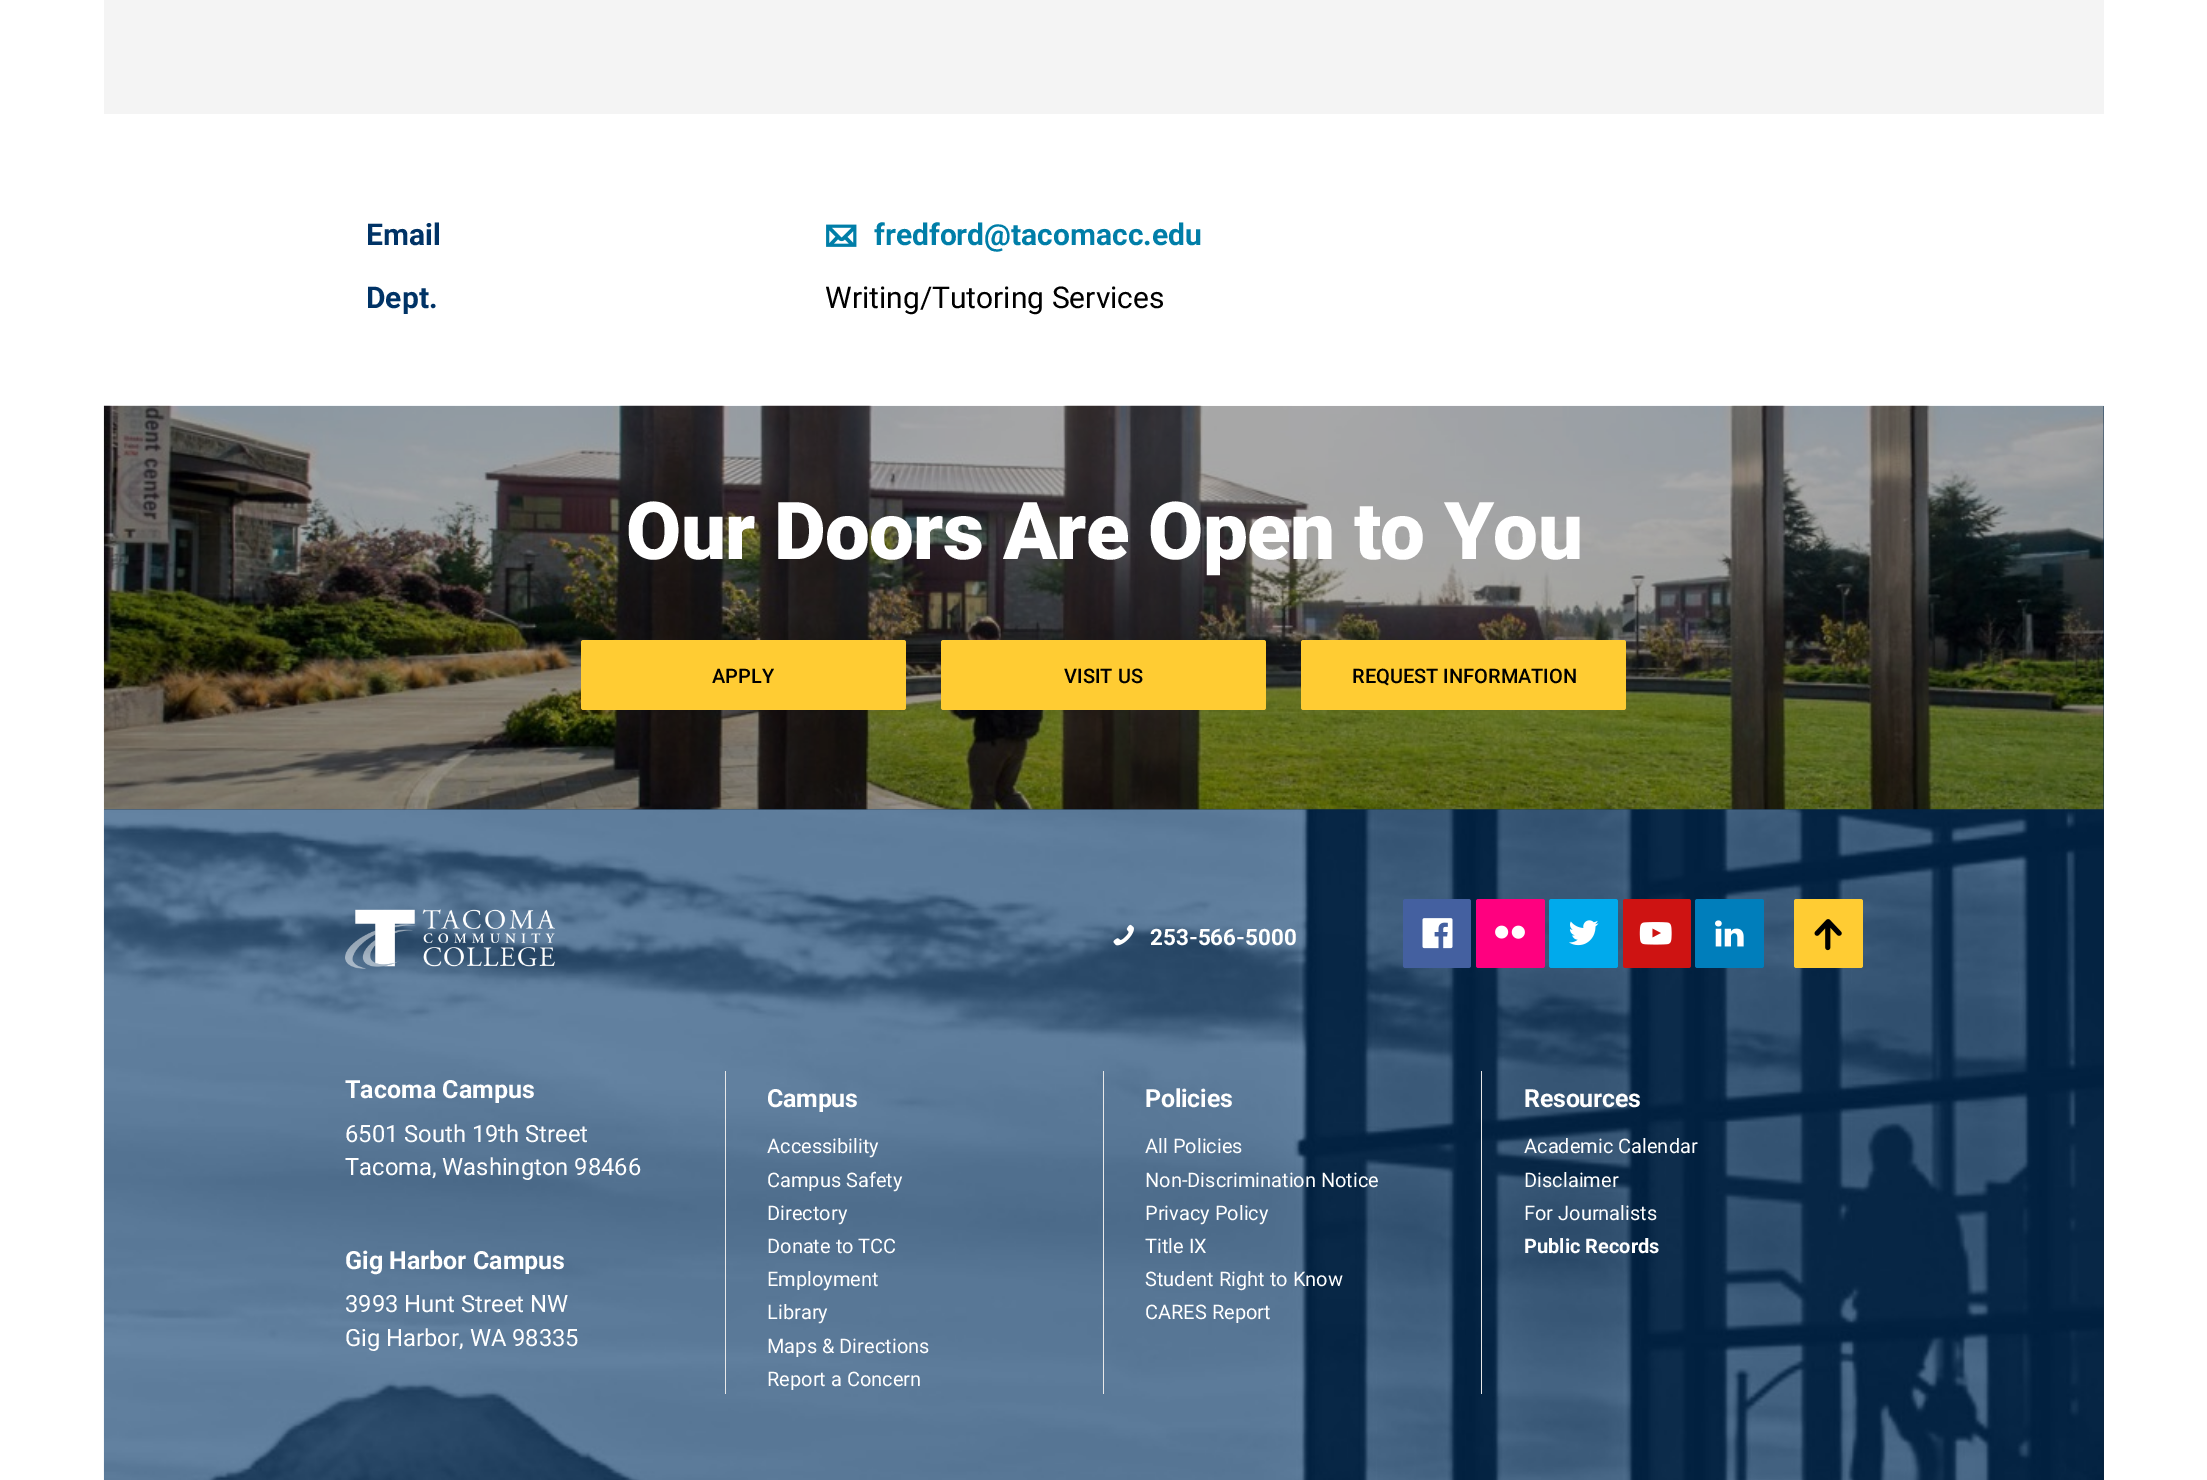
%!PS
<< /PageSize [2207 1480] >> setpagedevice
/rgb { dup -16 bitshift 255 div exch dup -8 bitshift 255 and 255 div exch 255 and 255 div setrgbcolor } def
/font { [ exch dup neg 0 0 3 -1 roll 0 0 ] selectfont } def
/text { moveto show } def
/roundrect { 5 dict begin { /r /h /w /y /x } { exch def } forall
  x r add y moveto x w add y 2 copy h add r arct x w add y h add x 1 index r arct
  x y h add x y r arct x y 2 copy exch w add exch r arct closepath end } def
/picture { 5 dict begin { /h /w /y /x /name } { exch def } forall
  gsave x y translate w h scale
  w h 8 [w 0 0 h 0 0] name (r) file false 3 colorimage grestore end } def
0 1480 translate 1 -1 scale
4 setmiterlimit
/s1 { /Roboto-Bold 30 font 16#003366 rgb } def
/s2 { /Roboto-Bold 30 font 16#007EA8 rgb } def
/s3 { /Roboto-Regular 30 font 16#000000 rgb } def
/s4 { /Roboto-Medium 20 font 16#000000 rgb } def
/s5 { /Roboto-Bold 22.5 font 16#FFFFFF rgb } def
/s6 { /Roboto-Bold 25 font 16#FFFFFF rgb } def
/s7 { /Roboto-Regular 23.75 font 16#FFFFFF rgb } def
/s8 { /Roboto-Regular 20 font 16#FFFFFF rgb } def
/s9 { /Roboto-Bold 20 font 16#FFFFFF rgb } def
16#FFFFFF rgb
0 0 2207 1480 rectfill
16#F4F4F4 rgb
104 0 2000 114 rectfill
s1
(Email) 366 245 text
(pic1.raw) 826 224 31 23 picture
s2
(fredford@tacomacc.edu) 874 245 text
s1
(Dept.) 366 308 text
s3
(Writing/Tutoring Services) 825 308 text
16#002447 rgb
104 406 2000 404 rectfill
(pic2.raw) 103 405 2001 405 picture
/Roboto-Black 80 font
16#FFFFFF rgb
626 559 moveto -0.7 0 (Our Doors Are Open to You) ashow
16#FFCC33 rgb
581 640 325 70 2.5 roundrect fill
s4
(APPLY) 712 683 text
16#FFCC33 rgb
941 640 325 70 2.5 roundrect fill
s4
(VISIT US) 1064 683 text
16#FFCC33 rgb
1301 640 325 70 2.5 roundrect fill
s4
(REQUEST INFORMATION) 1352 683 text
16#0B2239 rgb
2103 810 1 670 rectfill
(pic3.raw) 103 809 2001 671 picture
(pic4.raw) 345 909 210 60 picture
(pic5.raw) 1113 924 21 22 picture
s5
(253-566-5000) 1150 945 text
16#4460A0 rgb
1403 899 68 69 2.5 roundrect fill
(pic6.raw) 1422 918 31 31 picture
16#FF007F rgb
1476 899 69 69 2.5 roundrect fill
(pic7.raw) 1495 925 30 14 picture
16#00AAEC rgb
1549 899 69 69 2.5 roundrect fill
(pic8.raw) 1569 920 30 26 picture
16#CE1312 rgb
1623 899 68 69 2.5 roundrect fill
(pic9.raw) 1639 922 33 23 picture
16#007EBB rgb
1695 899 69 69 2.5 roundrect fill
(pic10.raw) 1715 920 29 27 picture
16#FFCC33 rgb
1794 899 69 69 2.5 roundrect fill
(pic11.raw) 1814 919 28 32 picture
s6
(Tacoma Campus) 345 1098 text
s7
(6501 South 19th Street) 345 1142 text
(Tacoma, Washington 98466) 345 1175 text
s6
(Gig Harbor Campus) 345 1269 text
s7
(3993 Hunt Street NW) 345 1312 text
(Gig Harbor, WA 98335) 345 1346 text
16#E8E8E8 rgb
1103 1071 1 323 rectfill
725 1071 1 323 rectfill
/Roboto-Bold 25 font
16#FFFFFF rgb
767 1107 moveto -0.25 0 (Campus) ashow
s8
(Accessibility) 767 1153 text
(Campus Safety) 767 1187 text
(Directory) 767 1220 text
(Donate to TCC) 767 1253 text
(Employment) 767 1286 text
(Library) 767 1319 text
(Maps & Directions) 767 1353 text
(Report a Concern) 767 1386 text
16#E8E8E8 rgb
1481 1071 1 323 rectfill
/Roboto-Bold 25 font
16#FFFFFF rgb
1145 1107 moveto -0.25 0 (Policies) ashow
s8
(All Policies) 1145 1153 text
(Non-Discrimination Notice) 1145 1187 text
(Privacy Policy) 1145 1220 text
(Title IX) 1145 1253 text
(Student Right to Know) 1145 1286 text
(CARES Report) 1145 1319 text
/Roboto-Bold 25 font
1524 1107 moveto -0.25 0 (Resources) ashow
s8
(Academic Calendar) 1524 1153 text
(Disclaimer) 1524 1187 text
(For Journalists) 1524 1220 text
s9
(Public Records) 1524 1253 text
showpage
